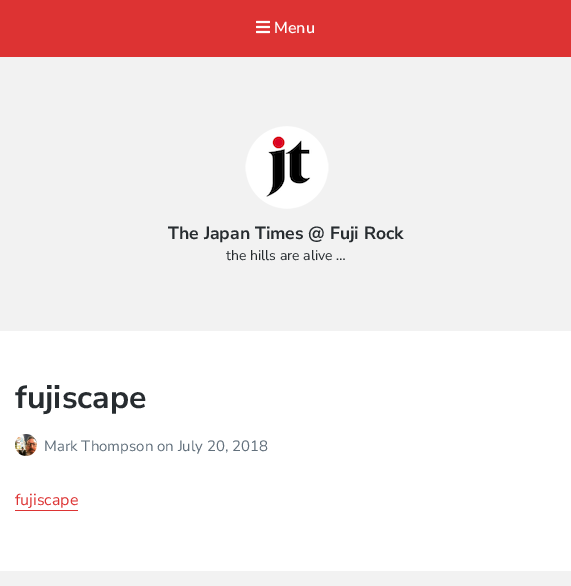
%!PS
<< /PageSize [571 586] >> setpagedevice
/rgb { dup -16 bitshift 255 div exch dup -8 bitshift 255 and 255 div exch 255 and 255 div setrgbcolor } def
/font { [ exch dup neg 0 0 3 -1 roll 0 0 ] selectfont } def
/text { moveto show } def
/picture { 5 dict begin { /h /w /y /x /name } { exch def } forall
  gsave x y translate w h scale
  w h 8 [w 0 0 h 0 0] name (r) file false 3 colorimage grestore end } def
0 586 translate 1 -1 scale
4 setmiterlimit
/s1 { /NunitoSans-SemiBold 16 font 16#FFFFFF rgb } def
/s2 { /NunitoSans-Bold 17.6 font 16#272C30 rgb } def
/s3 { /NunitoSans-Regular 14 font 16#272C30 rgb } def
/s4 { /NunitoSans-Bold 32 font 16#272C30 rgb } def
/s5 { /NunitoSans-Regular 15 font 16#62707C rgb } def
/s6 { /NunitoSans-Regular 16 font 16#DD3333 rgb } def
16#FFFFFF rgb
0 0 571 586 rectfill
16#F2F2F2 rgb
0 57 571 274 rectfill
16#DD3333 rgb
0 0 571 57 rectfill
(pic1.raw) 256 20 14 14 picture
s1
(Menu) 274 33 text
(pic2.raw) 245 126 84 83 picture
s2
(The Japan Times @ Fuji Rock) 168 239 text
s3
(the hills are alive …) 226 260 text
s4
(fujiscape) 15 408 text
(pic3.raw) 15 434 22 22 picture
s5
(Mark Thompson on July 20, 2018) 44 451 text
s6
(fujiscape) 15 505 text
15 510 63 1 rectfill
16#F2F2F2 rgb
0 571 571 15 rectfill
showpage
